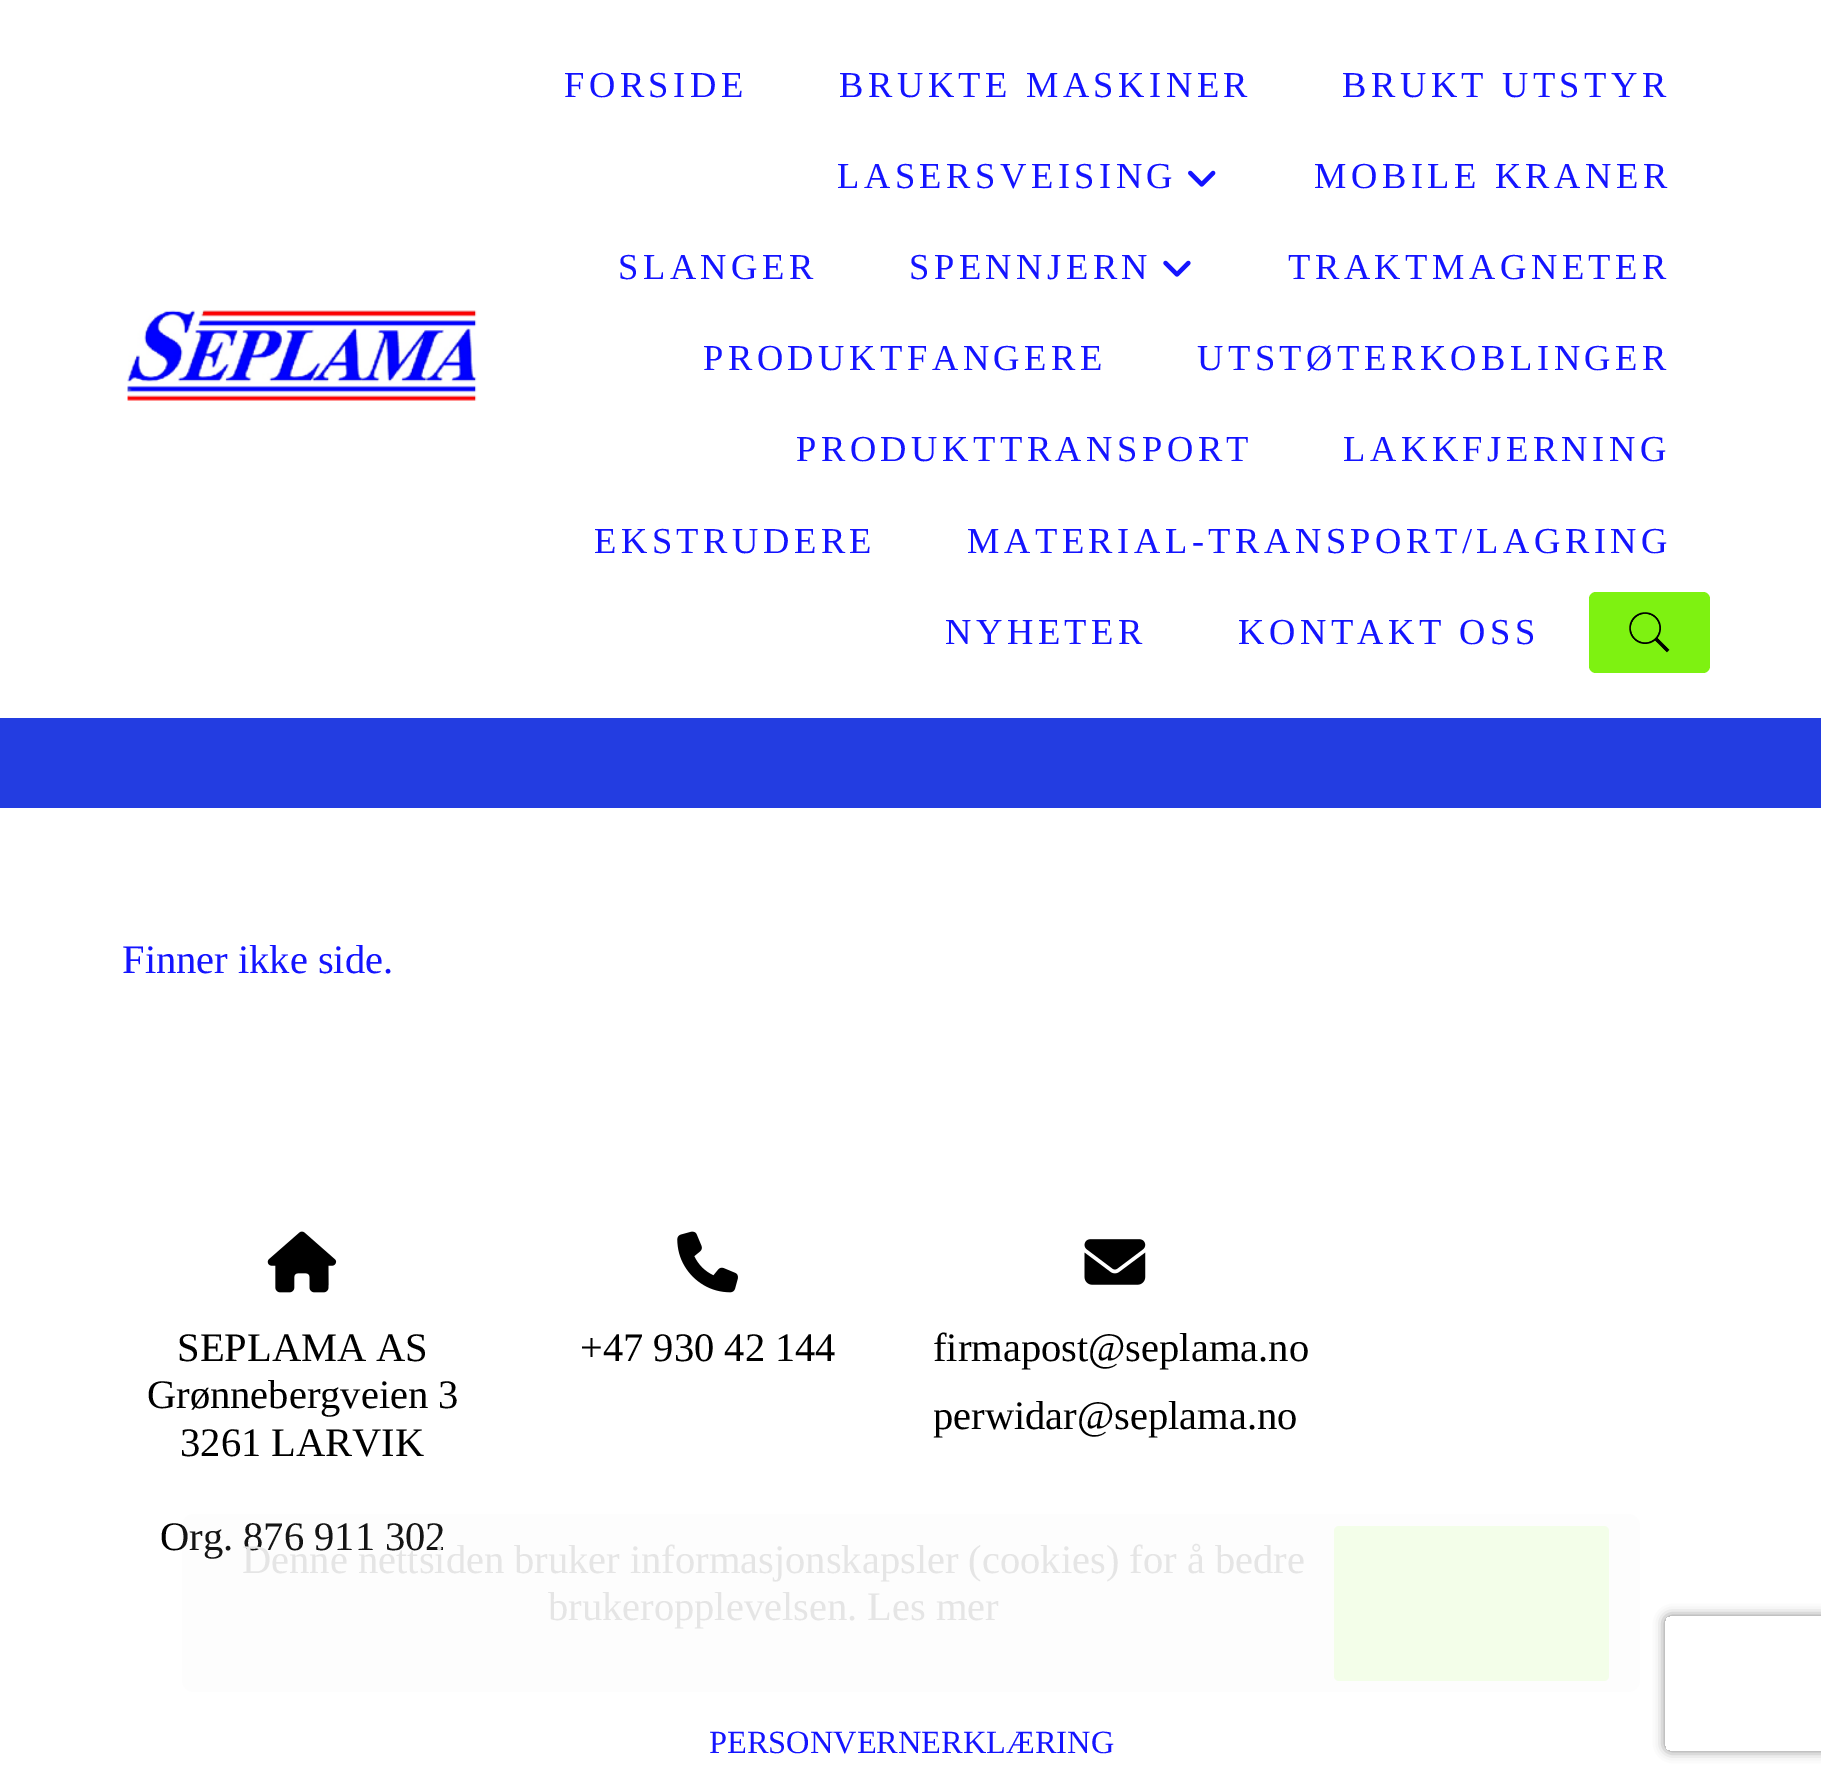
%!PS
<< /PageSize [1821 1782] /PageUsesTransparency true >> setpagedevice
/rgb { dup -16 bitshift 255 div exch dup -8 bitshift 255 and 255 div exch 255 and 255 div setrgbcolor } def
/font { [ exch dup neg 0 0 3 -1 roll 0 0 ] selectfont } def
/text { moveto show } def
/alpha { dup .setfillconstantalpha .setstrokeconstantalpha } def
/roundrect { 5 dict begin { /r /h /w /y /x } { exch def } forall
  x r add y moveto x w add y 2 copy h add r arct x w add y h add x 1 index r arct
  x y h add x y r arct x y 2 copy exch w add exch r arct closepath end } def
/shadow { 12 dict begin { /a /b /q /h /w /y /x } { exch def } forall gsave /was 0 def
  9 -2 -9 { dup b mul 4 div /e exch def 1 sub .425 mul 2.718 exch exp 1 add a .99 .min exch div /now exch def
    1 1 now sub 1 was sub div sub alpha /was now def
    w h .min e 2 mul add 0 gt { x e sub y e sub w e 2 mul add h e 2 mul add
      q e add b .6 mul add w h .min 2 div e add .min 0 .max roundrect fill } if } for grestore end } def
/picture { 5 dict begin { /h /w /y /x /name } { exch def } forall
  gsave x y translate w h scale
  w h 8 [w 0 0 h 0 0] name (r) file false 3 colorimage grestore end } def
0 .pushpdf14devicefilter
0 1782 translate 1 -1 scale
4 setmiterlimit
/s1 { /LiberationSerif-Regular 40.5 font 16#1414FF rgb } def
/s2 { /LiberationSerif-Regular 40.5 font 16#000000 rgb } def
/s3 { /LiberationSerif-Regular 40.5 font 16#E5E5E5 rgb } def
/s4 { /LiberationSerif-Regular 32.4 font 16#1414FF rgb } def
16#FFFFFF rgb
0 0 1821 1782 rectfill
(pic1.raw) 127 310 350 91 picture
/LiberationSerif-Regular 36.5 font
16#1414FF rgb
564 97 moveto 4.5 0 (FORSIDE) ashow
839 97 moveto 4.5 0 (BRUKTE MASKINER) ashow
1342 97 moveto 4.5 0 (BRUKT UTSTYR) ashow
837 188 moveto 4.5 0 (LASERSVEISING) ashow
(pic2.raw) 1188 170 28 17 picture
1314 188 moveto 4.5 0 (MOBILE KRANER) ashow
618 279 moveto 4.5 0 (SLANGER) ashow
909 279 moveto 4.5 0 (SPENNJERN) ashow
(pic3.raw) 1163 260 28 17 picture
1288 279 moveto 4.5 0 (TRAKTMAGNETER) ashow
703 370 moveto 4.5 0 (PRODUKTFANGERE) ashow
1197 370 moveto 4.5 0 (UTSTØTERKOBLINGER) ashow
796 461 moveto 4.5 0 (PRODUKTTRANSPORT) ashow
1343 461 moveto 4.5 0 (LAKKFJERNING) ashow
594 553 moveto 4.5 0 (EKSTRUDERE) ashow
967 553 moveto 4.5 0 (MATERIAL-TRANSPORT/LAGRING) ashow
945 644 moveto 4.5 0 (NYHETER) ashow
1238 644 moveto 4.5 0 (KONTAKT OSS) ashow
16#7EF211 rgb
1589 592 121 81 7 roundrect fill
(pic4.raw) 1629 612 41 41 picture
16#233DE1 rgb
0 718 1821 90 rectfill
s1
(Finner ikke side.) 122 973 text
(pic5.raw) 267 1231 70 62 picture
s2
(SEPLAMA AS) 177 1361 text
(Grønnebergveien 3) 147 1408 text
(3261 LARVIK) 180 1456 text
(Org. 876 911 302) 160 1550 text
(pic6.raw) 677 1231 61 62 picture
(+47 930 42 144) 580 1361 text
(pic7.raw) 1084 1239 62 46 picture
(firmapost@seplama.no) 933 1361 text
(perwidar@seplama.no) 933 1429 text
0.09 alpha
16#EEEEEE rgb
182 1514 1458 178 11 roundrect fill
1 alpha
s3
(Denne nettsiden bruker informasjonskapsler \(cookies\) for å bedre) 242 1573 text
(brukeropplevelsen. Les mer) 548 1620 text
16#F3FEE9 rgb
1334 1526 275 155 5 roundrect fill
s4
(PERSONVERNERKLÆRING) 709 1753 text
gsave
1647 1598 moveto 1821 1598 lineto 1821 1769 lineto 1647 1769 lineto closepath 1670 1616 moveto 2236 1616 lineto 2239 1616 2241 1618 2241 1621 curveto 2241 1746 lineto 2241 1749 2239 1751 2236 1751 curveto 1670 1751 lineto 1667 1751 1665 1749 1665 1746 curveto 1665 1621 lineto 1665 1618 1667 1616 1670 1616 curveto closepath eoclip newpath
16#808080 rgb
1665 1616 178 135 5 5.5 1 shadow
grestore
.poppdf14devicefilter showpage
